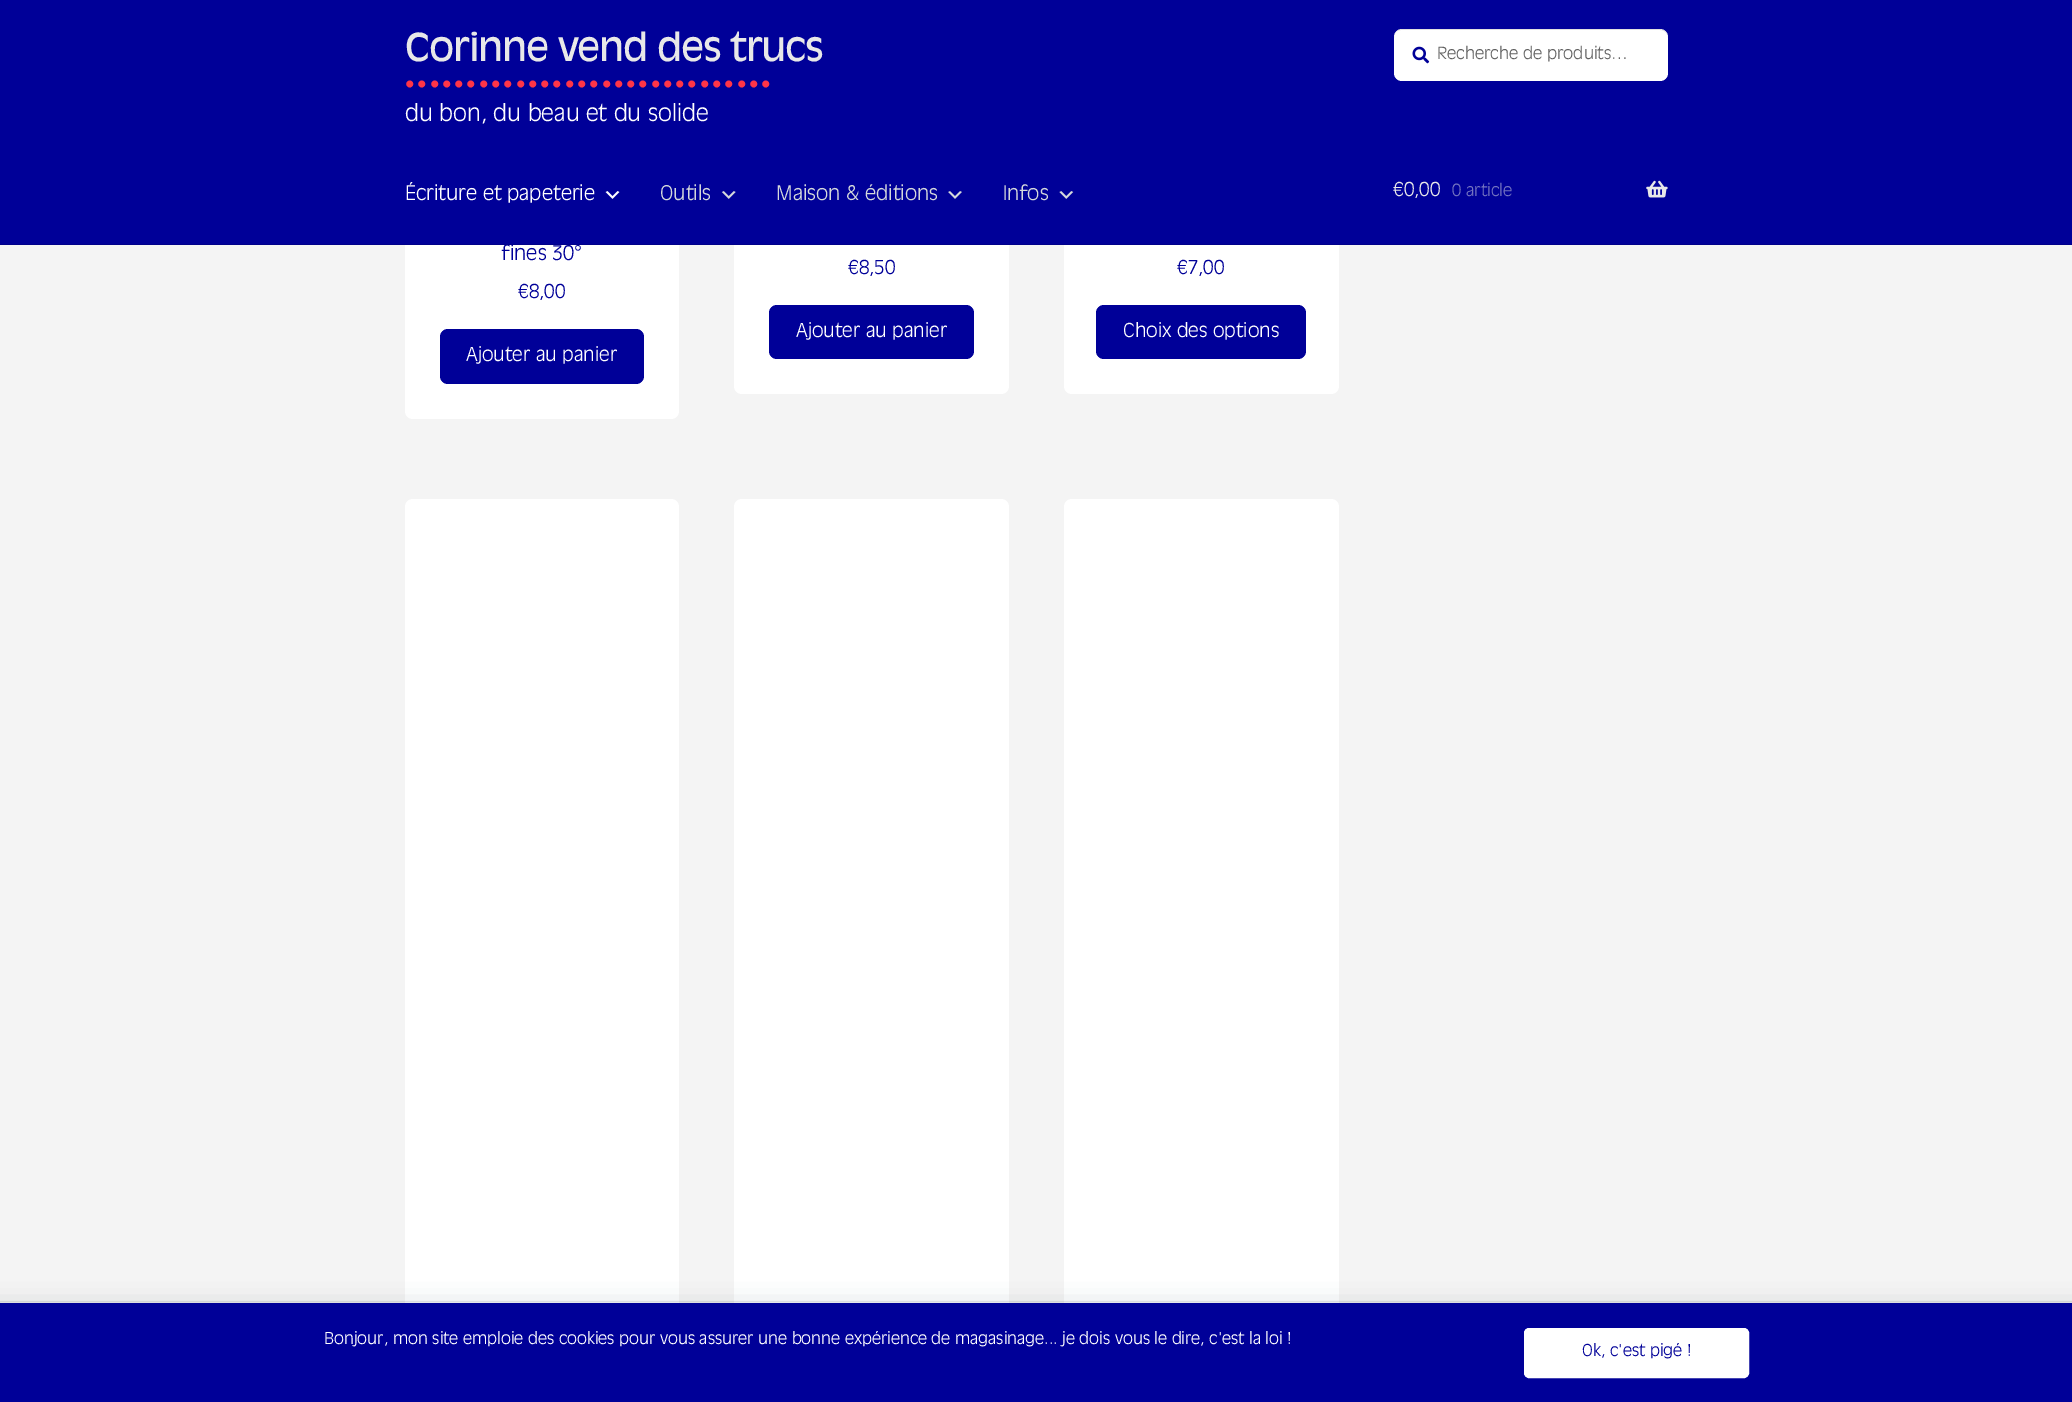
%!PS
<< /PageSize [2072 1402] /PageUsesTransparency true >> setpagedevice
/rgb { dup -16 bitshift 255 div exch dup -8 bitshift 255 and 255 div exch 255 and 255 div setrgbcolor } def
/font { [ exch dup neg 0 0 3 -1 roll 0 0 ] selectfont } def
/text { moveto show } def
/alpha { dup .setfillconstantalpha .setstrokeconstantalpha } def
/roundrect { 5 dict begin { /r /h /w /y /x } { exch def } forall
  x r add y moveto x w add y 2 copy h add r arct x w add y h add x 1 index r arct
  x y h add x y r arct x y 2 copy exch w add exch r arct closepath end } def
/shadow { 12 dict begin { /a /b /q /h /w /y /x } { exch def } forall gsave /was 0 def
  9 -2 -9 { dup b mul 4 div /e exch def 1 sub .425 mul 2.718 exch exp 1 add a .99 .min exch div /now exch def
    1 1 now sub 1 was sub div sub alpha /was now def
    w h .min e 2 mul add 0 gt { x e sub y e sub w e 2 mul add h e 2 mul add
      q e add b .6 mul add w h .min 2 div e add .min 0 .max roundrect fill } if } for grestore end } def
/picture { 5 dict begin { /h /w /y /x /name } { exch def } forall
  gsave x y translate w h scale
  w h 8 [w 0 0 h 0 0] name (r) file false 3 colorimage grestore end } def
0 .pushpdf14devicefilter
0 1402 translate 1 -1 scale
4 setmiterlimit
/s1 { /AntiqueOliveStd-Light 20 font 16#000098 rgb } def
/s2 { /AntiqueOliveStd-Light 22.75 font 16#FFFFFF rgb } def
/s3 { /AntiqueOliveStd-Light 16.6 font 16#616161 rgb } def
/s4 { /AntiqueOliveStd-Light 20 font 16#FFFFFF rgb } def
/s5 { /AntiqueOliveStd-Light 20 font 16#D5D9DB rgb } def
/s6 { /AntiqueOliveStd-Light 19 font 16#E8E8E8 rgb } def
/s7 { /AntiqueOliveStd-Light 16.6 font 16#7474C0 rgb } def
/s8 { /AntiqueOliveStd-Light 19 font 16#000098 rgb } def
/s9 { /AntiqueOliveStd-Light 19 font 16#FFFFFF rgb } def
/s10 { /AntiqueOliveStd-Light 16.25 font 16#FFFFFF rgb } def
/s11 { /AntiqueOliveStd-Light 16.25 font 16#000098 rgb } def
16#F4F4F4 rgb
0 0 2072 1402 rectfill
16#FFFFFF rgb
405 -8 274 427 8 roundrect fill
734 -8 275 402 8 roundrect fill
1064 -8 275 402 8 roundrect fill
16#000098 rgb
0 0 2072 244 rectfill
s1
(fines 30°) 502 260 text
16#000089 rgb
0 244 2072 1 rectfill
/AntiqueOliveStd-Regular 38 font
16#E8E8E8 rgb
405 61 moveto -1.25 0 (Corinne vend des trucs) ashow
/AntiqueOliveStd-Light 19 font
16#FF3547 rgb
405 91 moveto -1.25 0 (• • • • • • • • • • • • • • • • • • • • • • • • • • • • • •) ashow
s2
(du bon, du beau et du solide) 405 121 text
1394 29 274 52 8 roundrect fill
(pic1.raw) 1412 46 18 18 picture
0.12 alpha
16#000000 rgb
1401 30 moveto 1660 30 lineto 1664 30 1668 33 1668 38 curveto 1668 37 lineto 1668 33 1664 29 1660 29 curveto 1402 29 lineto 1398 29 1394 33 1394 37 curveto 1394 38 lineto 1394 33 1397 30 1401 30 curveto closepath fill
1 alpha
s3
(Recherche de produits…) 1437 59 text
s4
(Écriture et papeterie) 405 200 text
(pic2.raw) 605 191 15 8 picture
s5
(Outils) 660 200 text
(pic3.raw) 721 191 15 8 picture
(Maison & éditions) 776 200 text
(pic4.raw) 948 191 14 8 picture
(Infos) 1003 200 text
(pic5.raw) 1059 191 15 8 picture
s6
(€0,00) 1393 196 text
s7
(0 article) 1452 196 text
(pic6.raw) 1646 180 22 18 picture
s8
(€8,00) 518 298 text
440 329 204 55 8 roundrect fill
s9
(Ajouter au panier) 466 361 text
s8
(€8,50) 848 274 text
769 305 205 54 8 roundrect fill
s9
(Ajouter au panier) 796 337 text
s8
(€7,00) 1177 274 text
1096 305 210 54 8 roundrect fill
s9
(Choix des options) 1123 337 text
405 499 274 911 8 roundrect fill
734 499 275 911 8 roundrect fill
1064 499 275 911 8 roundrect fill
16#242F42 rgb
-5 1310 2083 85 0 12.5 0.31 shadow
0.08 alpha
-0.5 1301.5 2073 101 rectstroke
1 alpha
16#000098 rgb
0 1303 2072 99 rectfill
s10
(Bonjour, mon site emploie des cookies pour vous assurer une bonne expérience de magasinage... je dois vous le dire, c'est la loi !) 324 1344 text
1524.5 1328.5 224 49 4.5 roundrect gsave fill grestore
stroke
s11
(Ok, c'est pigé !) 1582 1356 text
.poppdf14devicefilter showpage
